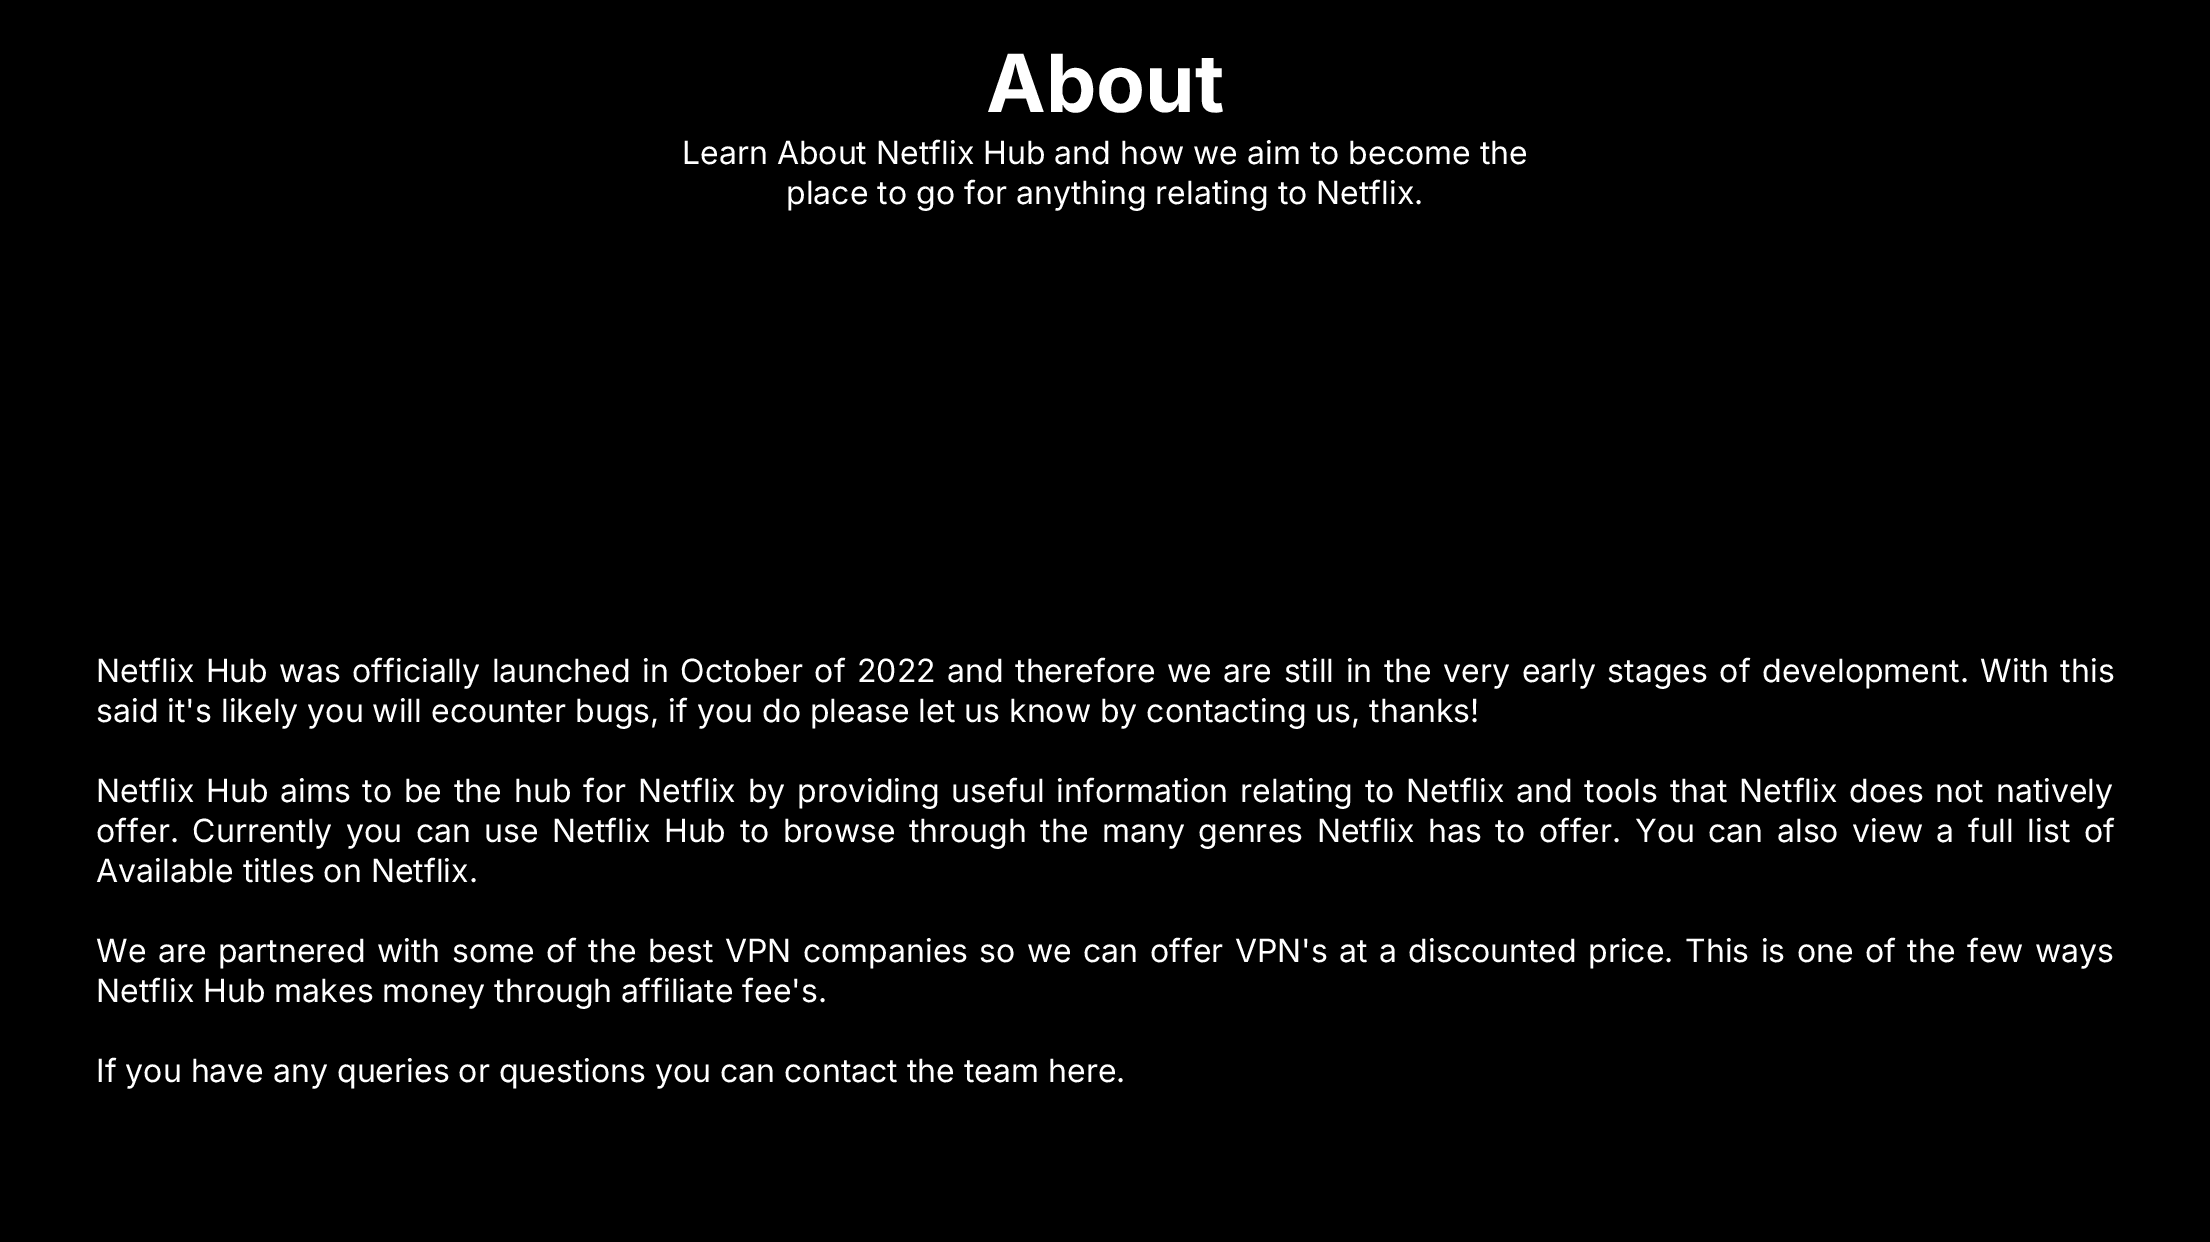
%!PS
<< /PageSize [2210 1242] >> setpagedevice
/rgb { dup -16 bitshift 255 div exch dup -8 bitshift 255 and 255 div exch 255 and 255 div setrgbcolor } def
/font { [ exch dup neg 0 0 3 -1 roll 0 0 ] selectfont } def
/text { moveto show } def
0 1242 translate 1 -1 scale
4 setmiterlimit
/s1 { /Inter-Bold 80 font 16#FFFFFF rgb } def
/s2 { /Inter-Regular 32 font 16#FFFFFF rgb } def
16#000000 rgb
0 0 2210 1242 rectfill
s1
(About) 986 112 text
s2
(Learn About Netflix Hub and how we aim to become the) 682 164 text
(place to go for anything relating to Netflix.) 786 204 text
96 682 moveto 2.5 0 32 (Netflix Hub was officially launched in October of 2022 and therefore we are still in the very early stages of development. With this) widthshow
(said it's likely you will ecounter bugs, if you do please let us know by contacting us, thanks!) 96 722 text
96 802 moveto 2.8 0 32 (Netflix Hub aims to be the hub for Netflix by providing useful information relating to Netflix and tools that Netflix does not natively) widthshow
96 842 moveto 4.5 0 32 (offer. Currently you can use Netflix Hub to browse through the many genres Netflix has to offer. You can also view a full list of) widthshow
(Available titles on Netflix.) 96 882 text
96 962 moveto 2.4 0 32 (We are partnered with some of the best VPN companies so we can offer VPN's at a discounted price. This is one of the few ways) widthshow
(Netflix Hub makes money through affiliate fee's.) 96 1002 text
(If you have any queries or questions you can contact the team here.) 96 1082 text
showpage
